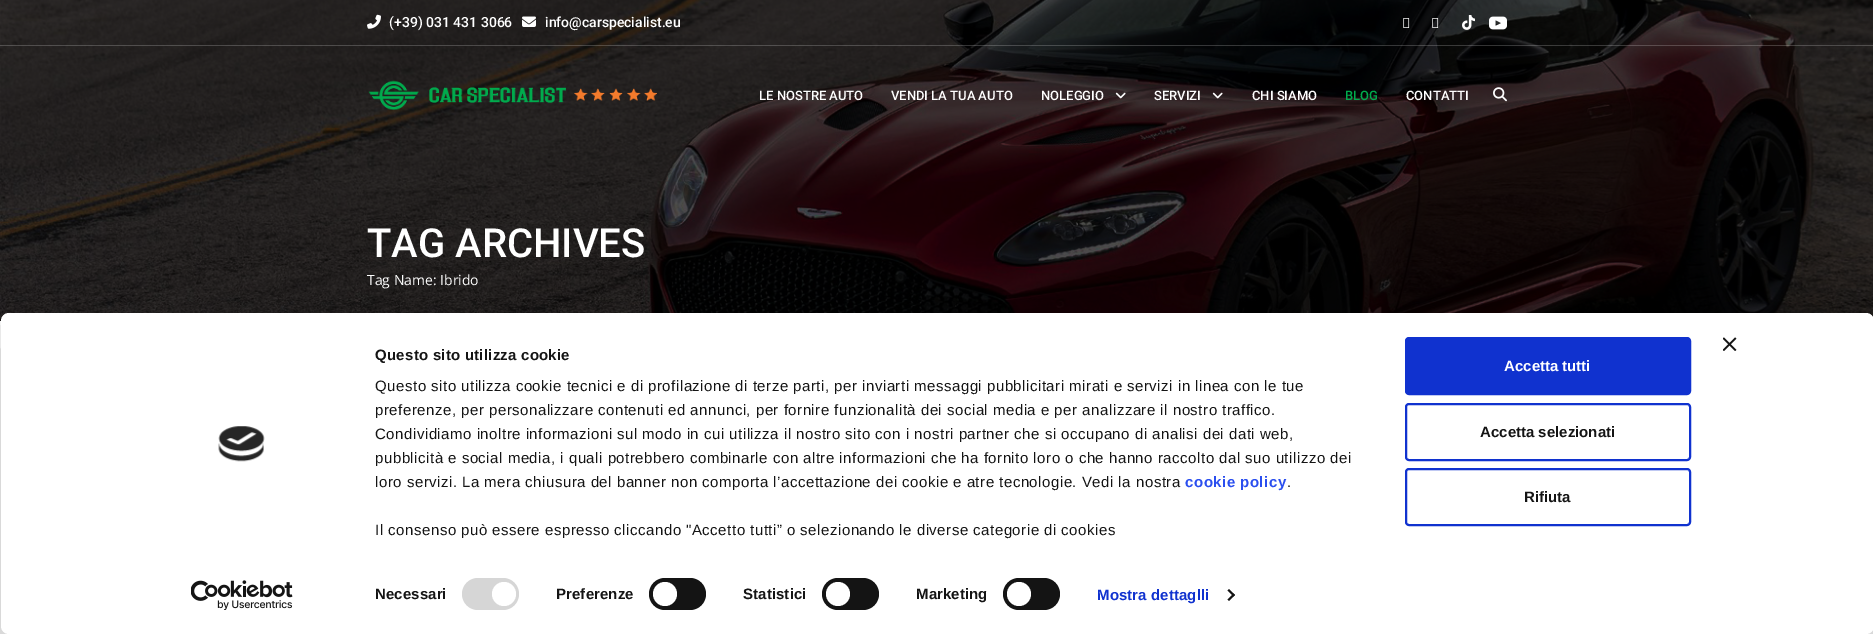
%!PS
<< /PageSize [1873 634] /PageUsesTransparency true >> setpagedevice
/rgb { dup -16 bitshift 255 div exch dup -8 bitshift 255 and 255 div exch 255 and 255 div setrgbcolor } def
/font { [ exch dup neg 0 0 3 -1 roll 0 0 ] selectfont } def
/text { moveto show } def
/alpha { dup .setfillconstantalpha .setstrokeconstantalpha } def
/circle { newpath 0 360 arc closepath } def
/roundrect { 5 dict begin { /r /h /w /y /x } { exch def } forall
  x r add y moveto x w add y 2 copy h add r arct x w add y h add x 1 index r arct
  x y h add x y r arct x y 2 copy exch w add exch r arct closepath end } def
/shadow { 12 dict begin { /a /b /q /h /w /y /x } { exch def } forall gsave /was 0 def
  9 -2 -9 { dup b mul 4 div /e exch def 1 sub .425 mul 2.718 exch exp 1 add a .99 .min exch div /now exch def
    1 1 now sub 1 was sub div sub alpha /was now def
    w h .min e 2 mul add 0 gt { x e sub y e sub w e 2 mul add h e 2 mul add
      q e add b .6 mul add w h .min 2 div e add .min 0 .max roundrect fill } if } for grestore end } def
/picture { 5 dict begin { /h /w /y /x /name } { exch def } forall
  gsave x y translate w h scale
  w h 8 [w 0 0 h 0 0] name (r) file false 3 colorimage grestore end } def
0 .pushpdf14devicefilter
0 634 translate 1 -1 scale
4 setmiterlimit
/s1 { /Roboto-Medium 14 font 16#FFFFFF rgb } def
/s2 { /Roboto-Medium 13 font 16#FFFFFF rgb } def
/s3 { /Roboto-Medium 13 font 16#00AB4D rgb } def
/s4 { /Roboto-Medium 40 font 16#FFFFFF rgb } def
/s5 { /OpenSans-Regular 14 font 16#FFFFFF rgb } def
/s6 { /LiberationSans-Bold 15 font 16#FFFFFF rgb } def
/s7 { /LiberationSans-Bold 15 font 16#141414 rgb } def
16#FFFFFF rgb
0 0 1873 634 rectfill
(pic11.raw) 0 0 1873 321 picture
0.2 alpha
0 45 1873 1 rectfill
1 alpha
(pic1.raw) 367 14 14 15 picture
s1
(\(+39\) 031 431 3066) 389 27 text
(pic2.raw) 522 16 14 11 picture
(info@carspecialist.eu) 545 27 text
(pic3.raw) 1403 18 7 10 picture
(pic4.raw) 1432 18 7 10 picture
(pic5.raw) 1462 15 13 15 picture
(pic6.raw) 1489 16 18 14 picture
(pic7.raw) 368 80 289 30 picture
s2
(LE NOSTRE AUTO) 759 100 text
(VENDI LA TUA AUTO) 891 100 text
(NOLEGGIO) 1041 100 text
(pic8.raw) 1115 92 11 7 picture
(SERVIZI) 1154 100 text
(pic9.raw) 1212 92 11 7 picture
(CHI SIAMO) 1252 100 text
s3
(BLOG) 1345 100 text
s2
(CONTATTI) 1406 100 text
(pic10.raw) 1493 87 14 15 picture
s4
(TAG ARCHIVES) 367 257 text
s5
(Tag Name: Ibrido) 367 285 text
gsave
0 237 moveto 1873 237 lineto 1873 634 lineto 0 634 lineto closepath 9 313 moveto 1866 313 lineto 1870.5 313 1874 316.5 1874 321 curveto 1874 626 lineto 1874 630.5 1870.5 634 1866 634 curveto 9 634 lineto 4.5 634 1 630.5 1 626 curveto 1 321 lineto 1 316.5 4.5 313 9 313 curveto closepath eoclip newpath
16#000000 rgb
1 343 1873 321 8 35 0.3 shadow
grestore
1 313 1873 321 8 roundrect fill
(pic12.raw) 1723 337 14 14 picture
(pic13.raw) 218 426 47 36 picture
(pic14.raw) 191 580 102 30 picture
/LiberationSans-Bold 15 font
16#141414 rgb
375 360 moveto 0.25 0 (Questo sito utilizza cookie) ashow
/LiberationSans-Regular 15 font
375 391 moveto 0.5 0 (Questo sito utilizza cookie tecnici e di profilazione di terze parti, per inviarti messaggi pubblicitari mirati e servizi in linea con le tue) ashow
375 415 moveto 0.5 0 (preferenze, per personalizzare contenuti ed annunci, per fornire funzionalità dei social media e per analizzare il nostro traffico.) ashow
375 439 moveto 0.5 0 (Condividiamo inoltre informazioni sul modo in cui utilizza il nostro sito con i nostri partner che si occupano di analisi dei dati web,) ashow
375 463 moveto 0.5 0 (pubblicità e social media, i quali potrebbero combinarle con altre informazioni che ha fornito loro o che hanno raccolto dal suo utilizzo dei) ashow
375 487 moveto 0.5 0 (loro servizi. La mera chiusura del banner non comporta l’accettazione dei cookie e atre tecnologie. Vedi la nostra) ashow
/LiberationSans-Bold 15 font
16#2A4EEF rgb
1185 487 moveto 0.5 0 (cookie policy) ashow
/LiberationSans-Regular 15 font
16#141414 rgb
1287 487 moveto 0.5 0 (.) ashow
375 535 moveto 0.5 0 (Il consenso può essere espresso cliccando "Accetto tutti” o selezionando le diverse categorie di cookies) ashow
/LiberationSans-Bold 15 font
375 599 moveto 0.1 0 (Necessari) ashow
16#D6D6D6 rgb
462 578 57 32 16 roundrect fill
16#FFFFFF rgb
504 594 12 circle fill
16#141414 rgb
556 599 moveto 0.1 0 (Preferenze) ashow
649 578 57 32 16 roundrect fill
16#FFFFFF rgb
665 594 12 circle fill
16#141414 rgb
743 599 moveto 0.1 0 (Statistici) ashow
822 578 57 32 16 roundrect fill
16#FFFFFF rgb
838 594 12 circle fill
16#141414 rgb
916 599 moveto 0.1 0 (Marketing) ashow
1003 578 57 32 16 roundrect fill
16#FFFFFF rgb
1019 594 12 circle fill
16#1032CF rgb
1097 600 moveto 0.1 0 (Mostra dettaglli) ashow
16#141414 rgb
1229 589 moveto 1235 595 lineto 1233.5 596.5 lineto 1227.5 590.5 lineto closepath fill
1233.5 593.5 moveto 1235 595 lineto 1229 601 lineto 1227.5 599.5 lineto closepath fill
16#1032CF rgb
1406 338 284 56 3 roundrect gsave fill grestore
2 setlinewidth
stroke
s6
(Accetta tutti) 1504 371 text
16#1032CF rgb
1406 404 284 56 3 roundrect stroke
s7
(Accetta selezionati) 1480 437 text
16#1032CF rgb
1406 469 284 56 3 roundrect stroke
s7
(Rifiuta) 1524 502 text
.poppdf14devicefilter showpage
